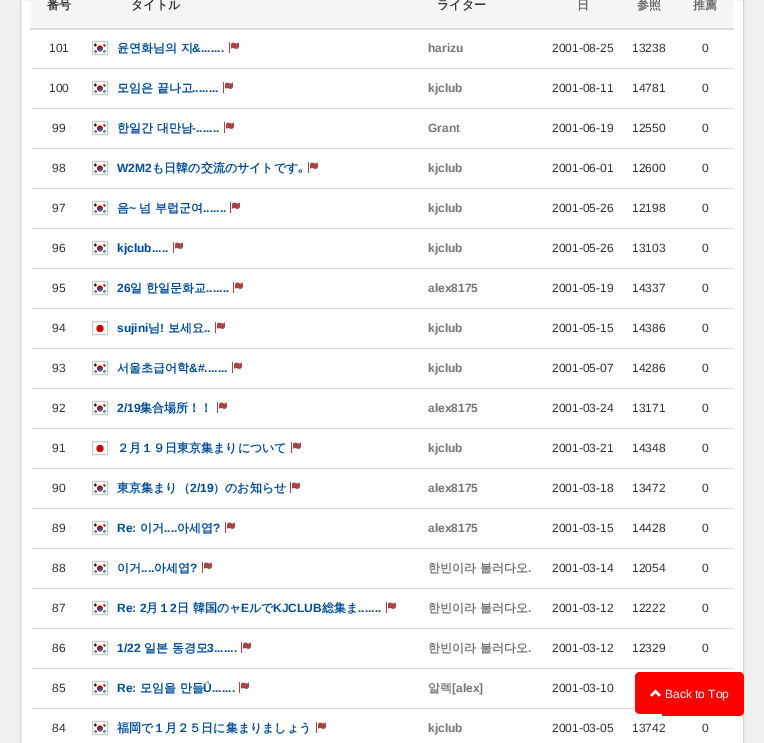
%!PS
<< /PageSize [764 743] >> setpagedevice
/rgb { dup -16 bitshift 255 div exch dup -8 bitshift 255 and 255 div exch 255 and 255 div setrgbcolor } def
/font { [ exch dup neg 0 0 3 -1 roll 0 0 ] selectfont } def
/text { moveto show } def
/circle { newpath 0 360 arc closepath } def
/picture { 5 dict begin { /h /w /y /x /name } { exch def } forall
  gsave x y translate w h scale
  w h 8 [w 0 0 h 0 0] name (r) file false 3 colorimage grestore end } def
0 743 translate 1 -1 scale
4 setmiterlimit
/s1 { /WenQuanYiZenHei-Bold 12 font 16#333333 rgb } def
/s2 { /WenQuanYiZenHei-Bold 12 font 16#666666 rgb } def
/s3 { /LiberationSans-Regular 12 font 16#333333 rgb } def
/s4 { /WenQuanYiZenHei-Bold 12 font 16#004D9B rgb } def
/s5 { /LiberationSans-Bold 12 font 16#004D9B rgb } def
/s6 { /LiberationSans-Bold 12 font 16#777777 rgb } def
/s7 { /IPAGothic-Bold 12 font 16#004D9B rgb } def
/s8 { /WenQuanYiZenHei-Bold 12 font 16#777777 rgb } def
/s9 { /LiberationSans-Regular 12 font 16#FFFFFF rgb } def
16#F0F0F0 rgb
0 0 764 743 rectfill
16#FFFFFF rgb
20.5 -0.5 moveto 743.5 -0.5 lineto 743.5 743.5 lineto 20.5 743.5 lineto closepath gsave fill grestore
16#D6D6D6 rgb
stroke
16#F5F5F5 rgb
31 0 702 28 rectfill
s1
(番号) 47 9 text
(タイトル) 131 9 text
(ライター) 437 9 text
s2
(日) 577 9 text
(参照) 637 9 text
16#DDDDDD rgb
30 28 704 2 rectfill
s2
(推薦) 693 9 text
s3
(101) 49 52 text
(pic1.raw) 94 43 12 11 picture
16#CCCCCC rgb
92.5 41.5 15 13 rectstroke
s4
(윤연화님의 지) 117 52 text
s5
(&.......) 192 52 text
(pic2.raw) 229 42 10 11 picture
s6
(harizu) 428 52 text
s3
(2001-08-25) 552 52 text
(13238) 632 52 text
(0) 702 52 text
(100) 49 92 text
(pic3.raw) 94 83 12 10 picture
16#CCCCCC rgb
92.5 81.5 15 13 rectstroke
s4
(모임은 끝나고) 117 92 text
s5
(........) 192 92 text
(pic2.raw) 223 82 10 11 picture
s6
(kjclub) 428 92 text
s3
(2001-08-11) 552 92 text
(14781) 632 92 text
16#DDDDDD rgb
31 68 703 1 rectfill
s3
(0) 702 92 text
(99) 52 132 text
(pic3.raw) 94 123 12 10 picture
16#CCCCCC rgb
92.5 121.5 15 13 rectstroke
s4
(한일간 대만남) 117 132 text
s5
(-.......) 192 132 text
(pic2.raw) 224 122 10 11 picture
s6
(Grant) 428 132 text
s3
(2001-06-19) 552 132 text
(12550) 632 132 text
16#DDDDDD rgb
31 108 703 1 rectfill
s3
(0) 702 132 text
(98) 52 172 text
(pic3.raw) 94 163 12 10 picture
16#CCCCCC rgb
92.5 161.5 15 13 rectstroke
s5
(W2M2) 117 172 text
s4
(も日韓の交流のサイトです) 152 172 text
s7
(｡) 298 172 text
(pic2.raw) 308 162 10 11 picture
s6
(kjclub) 428 172 text
s3
(2001-06-01) 552 172 text
(12600) 632 172 text
16#DDDDDD rgb
31 148 703 1 rectfill
s3
(0) 702 172 text
(97) 52 212 text
(pic3.raw) 94 203 12 10 picture
16#CCCCCC rgb
92.5 201.5 15 13 rectstroke
s4
(음) 117 212 text
s5
(~) 129 212 text
s4
(넘 부럽군여) 139 212 text
(pic2.raw) 230 202 10 11 picture
s5
(.......) 203 212 text
s6
(kjclub) 428 212 text
s3
(2001-05-26) 552 212 text
(12198) 632 212 text
16#DDDDDD rgb
31 188 703 1 rectfill
s3
(0) 702 212 text
(96) 52 252 text
(pic3.raw) 94 243 12 10 picture
16#CCCCCC rgb
92.5 241.5 15 13 rectstroke
s5
(kjclub.....) 117 252 text
(pic2.raw) 173 242 10 11 picture
s6
(kjclub) 428 252 text
s3
(2001-05-26) 552 252 text
(13103) 632 252 text
16#DDDDDD rgb
31 228 703 1 rectfill
s3
(0) 702 252 text
(95) 52 292 text
(pic3.raw) 94 283 12 10 picture
16#CCCCCC rgb
92.5 281.5 15 13 rectstroke
s5
(26) 117 292 text
s4
(일 한일문화교) 130 292 text
s5
(.......) 206 292 text
(pic2.raw) 233 282 10 11 picture
s6
(alex8175) 428 292 text
s3
(2001-05-19) 552 292 text
(14337) 632 292 text
16#DDDDDD rgb
31 268 703 1 rectfill
s3
(0) 702 292 text
(94) 52 332 text
16#D30000 rgb
100 328.5 3.5 circle fill
16#CCCCCC rgb
92.5 321.5 15 13 rectstroke
s5
(sujini) 117 332 text
s4
(님) 148 332 text
s5
(!) 160 332 text
s4
(보세요) 168 332 text
s5
(..) 204 332 text
(pic2.raw) 215 322 10 11 picture
s6
(kjclub) 428 332 text
s3
(2001-05-15) 552 332 text
(14386) 632 332 text
16#DDDDDD rgb
31 308 703 1 rectfill
s3
(0) 702 332 text
(93) 52 372 text
(pic3.raw) 94 363 12 10 picture
16#CCCCCC rgb
92.5 361.5 15 13 rectstroke
s4
(서울초급어학) 117 372 text
s5
(&#.......) 189 372 text
(pic2.raw) 232 362 10 11 picture
s6
(kjclub) 428 372 text
s3
(2001-05-07) 552 372 text
(14286) 632 372 text
16#DDDDDD rgb
31 348 703 1 rectfill
s3
(0) 702 372 text
(92) 52 412 text
(pic3.raw) 94 403 12 10 picture
16#CCCCCC rgb
92.5 401.5 15 13 rectstroke
s5
(2/19) 117 412 text
s4
(集合場所！！) 140 412 text
(pic2.raw) 217 402 10 11 picture
s6
(alex8175) 428 412 text
s3
(2001-03-24) 552 412 text
(13171) 632 412 text
16#DDDDDD rgb
31 388 703 1 rectfill
s3
(0) 702 412 text
(91) 52 452 text
16#D30000 rgb
100 448.5 3.5 circle fill
16#CCCCCC rgb
92.5 441.5 15 13 rectstroke
s4
(２月１９日東京集まりについて) 117 452 text
(pic2.raw) 291 442 10 11 picture
s6
(kjclub) 428 452 text
s3
(2001-03-21) 552 452 text
(14348) 632 452 text
16#DDDDDD rgb
31 428 703 1 rectfill
s3
(0) 702 452 text
(90) 52 492 text
(pic3.raw) 94 483 12 10 picture
16#CCCCCC rgb
92.5 481.5 15 13 rectstroke
s4
(東京集まり（) 117 492 text
s5
(2/19) 190 492 text
s4
(）のお知らせ) 213 492 text
(pic2.raw) 290 482 10 11 picture
s6
(alex8175) 428 492 text
s3
(2001-03-18) 552 492 text
(13472) 632 492 text
16#DDDDDD rgb
31 468 703 1 rectfill
s3
(0) 702 492 text
(89) 52 532 text
(pic3.raw) 94 523 12 10 picture
16#CCCCCC rgb
92.5 521.5 15 13 rectstroke
s5
(Re:) 117 532 text
s4
(이거) 140 532 text
s5
(....) 164 532 text
s4
(아세엽) 177 532 text
s5
(?) 213 532 text
(pic2.raw) 225 522 10 11 picture
s6
(alex8175) 428 532 text
s3
(2001-03-15) 552 532 text
(14428) 632 532 text
16#DDDDDD rgb
31 508 703 1 rectfill
s3
(0) 702 532 text
(88) 52 572 text
(pic3.raw) 94 563 12 10 picture
16#CCCCCC rgb
92.5 561.5 15 13 rectstroke
s4
(이거) 117 572 text
s5
(....) 141 572 text
s4
(아세엽) 154 572 text
s5
(?) 190 572 text
(pic2.raw) 202 562 10 11 picture
s8
(한빈이라 불러다오) 428 572 text
s6
(.) 528 572 text
s3
(2001-03-14) 552 572 text
(12054) 632 572 text
16#DDDDDD rgb
31 548 703 1 rectfill
s3
(0) 702 572 text
(87) 52 612 text
(pic3.raw) 94 603 12 10 picture
16#CCCCCC rgb
92.5 601.5 15 13 rectstroke
s5
(Re: 2) 117 612 text
s4
(月１) 146 612 text
s5
(2) 170 612 text
s4
(日 韓国のャ) 177 612 text
s5
(E) 241 612 text
s4
(ルで) 249 612 text
s5
(KJCLUB) 273 612 text
s4
(総集ま) 322 612 text
s5
(.......) 358 612 text
(pic2.raw) 386 602 10 11 picture
s8
(한빈이라 불러다오) 428 612 text
s6
(.) 528 612 text
s3
(2001-03-12) 552 612 text
(12222) 632 612 text
16#DDDDDD rgb
31 588 703 1 rectfill
s3
(0) 702 612 text
(86) 52 652 text
(pic3.raw) 94 643 12 10 picture
16#CCCCCC rgb
92.5 641.5 15 13 rectstroke
s5
(1/22) 117 652 text
s4
(일본 동경모) 144 652 text
s5
(3.......) 207 652 text
(pic2.raw) 241 642 10 11 picture
s8
(한빈이라 불러다오) 428 652 text
s6
(.) 528 652 text
s3
(2001-03-12) 552 652 text
(12329) 632 652 text
16#DDDDDD rgb
31 628 703 1 rectfill
s3
(0) 702 652 text
16#DDDDDD rgb
31 668 703 1 rectfill
s3
(85) 52 692 text
(pic3.raw) 94 683 12 10 picture
16#CCCCCC rgb
92.5 681.5 15 13 rectstroke
s5
(Re:) 117 692 text
s4
(모임을 만들) 140 692 text
s5
(Ǘ.......) 203 692 text
(pic2.raw) 239 682 10 11 picture
s8
(알렉) 428 692 text
s6
([alex]) 452 692 text
s3
(2001-03-10) 552 692 text
(84) 52 732 text
(pic3.raw) 94 723 12 10 picture
16#CCCCCC rgb
92.5 721.5 15 13 rectstroke
s4
(福岡で１月２５日に集まりましょう) 117 732 text
(pic2.raw) 316 722 10 11 picture
s6
(kjclub) 428 732 text
s3
(2001-03-05) 552 732 text
16#DDDDDD rgb
31 708 604 1 rectfill
s3
(13742) 632 732 text
(0) 702 732 text
16#FF0000 rgb
640 672 moveto 662 672 lineto 662 714 lineto 640 714 lineto 637 714 635 712 635 709 curveto 635 677 lineto 635 674 637 672 640 672 curveto closepath fill
662 672 moveto 739 672 lineto 742 672 744 674 744 677 curveto 744 711 lineto 744 714 742 716 739 716 curveto 662 716 lineto closepath fill
(pic4.raw) 650 689 11 8 picture
s9
(Back to Top) 665 698 text
showpage
